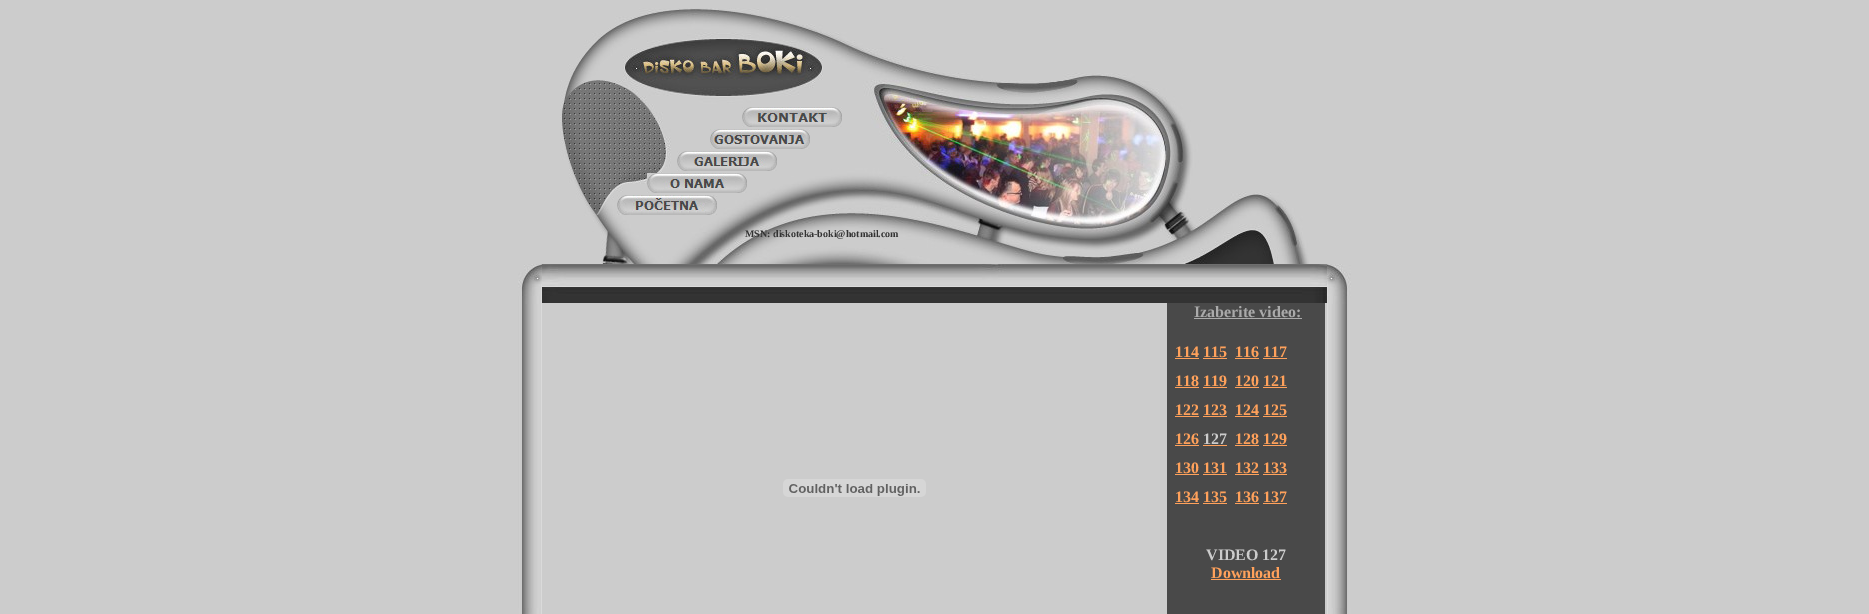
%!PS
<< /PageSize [1869 614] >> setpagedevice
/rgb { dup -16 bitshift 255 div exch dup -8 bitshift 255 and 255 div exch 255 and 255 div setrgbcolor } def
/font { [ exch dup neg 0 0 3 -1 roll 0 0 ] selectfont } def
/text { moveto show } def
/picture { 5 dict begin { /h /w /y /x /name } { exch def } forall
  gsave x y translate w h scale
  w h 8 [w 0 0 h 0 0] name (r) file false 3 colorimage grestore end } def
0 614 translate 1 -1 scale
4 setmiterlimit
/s1 { /LiberationSerif-Bold 10 font 16#333333 rgb } def
/s2 { /LiberationSerif-Bold 16 font 16#AAAAAA rgb } def
/s3 { /LiberationSerif-Bold 16 font 16#FFA15B rgb } def
/s4 { /LiberationSerif-Bold 16 font 16#CCCCCC rgb } def
16#CCCCCC rgb
0 0 1869 614 rectfill
(pic1.raw) 560 27 55 237 picture
(pic2.raw) 615 8 344 256 picture
(pic3.raw) 742 107 100 20 picture
(pic4.raw) 710 129 100 20 picture
(pic5.raw) 677 151 100 20 picture
(pic6.raw) 647 173 100 20 picture
(pic7.raw) 617 195 100 20 picture
s1
(MSN: diskoteka-boki@hotmail.com) 745 237 text
(pic8.raw) 959 73 350 191 picture
(pic9.raw) 518 264 24 350 picture
(pic10.raw) 542 264 785 39 picture
(pic11.raw) 1327 264 24 350 picture
(pic12.raw) 783 479 143 18 picture
16#494949 rgb
1167 303 158 311 rectfill
s2
(Izaberite video:) 1194 317 text
1194 318 108 1 rectfill
s3
(114 115) 1175 357 text
1175 358 24 1 rectfill
1203 358 24 1 rectfill
(116 117) 1235 357 text
1235 358 24 1 rectfill
1263 358 24 1 rectfill
(118 119) 1175 386 text
1175 387 24 1 rectfill
1203 387 24 1 rectfill
(120 121) 1235 386 text
1235 387 24 1 rectfill
1263 387 24 1 rectfill
(122 123) 1175 415 text
1175 416 24 1 rectfill
1203 416 24 1 rectfill
(124 125) 1235 415 text
1235 416 24 1 rectfill
1263 416 24 1 rectfill
(126) 1175 444 text
1175 445 24 1 rectfill
s4
(127) 1203 444 text
16#FFA15B rgb
1203 445 24 1 rectfill
(128 129) 1235 444 text
1235 445 24 1 rectfill
1263 445 24 1 rectfill
(130 131) 1175 473 text
1175 474 24 1 rectfill
1203 474 24 1 rectfill
(132 133) 1235 473 text
1235 474 24 1 rectfill
1263 474 24 1 rectfill
(134 135) 1175 502 text
1175 503 24 1 rectfill
1203 503 24 1 rectfill
(136 137) 1235 502 text
1235 503 24 1 rectfill
1263 503 24 1 rectfill
s4
(VIDEO 127) 1206 560 text
s3
(Download) 1211 578 text
1211 579 70 1 rectfill
showpage
